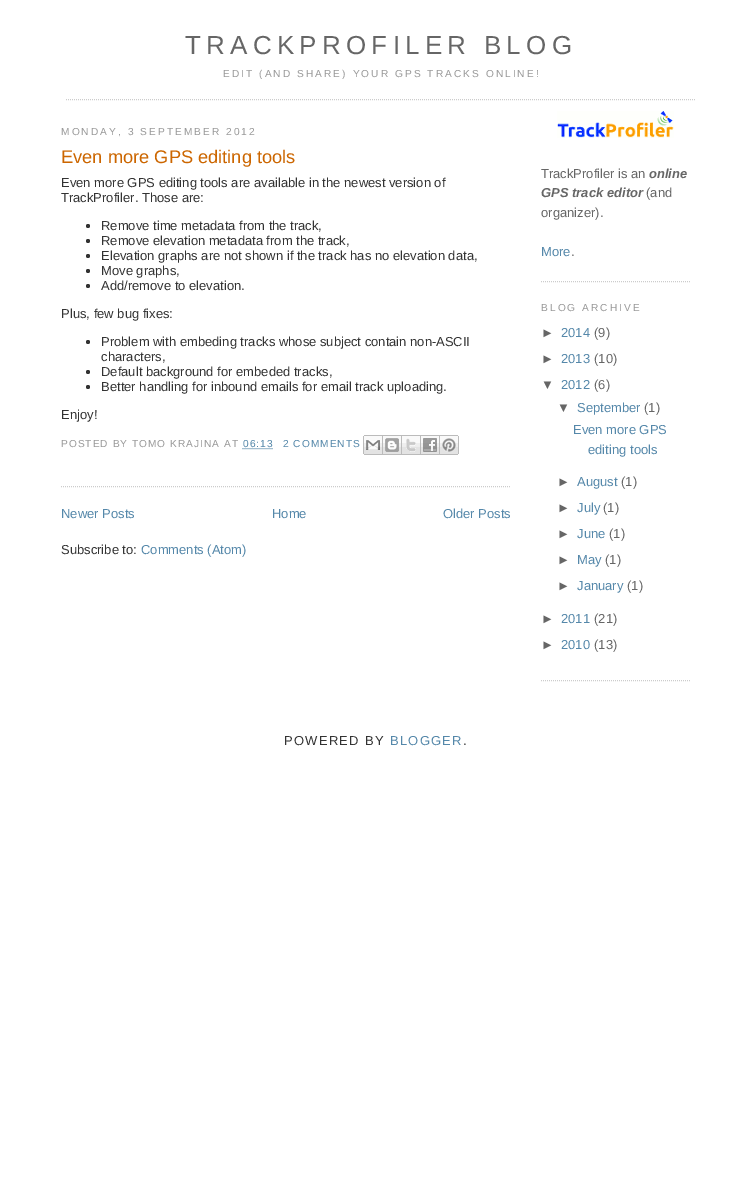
%!PS
<< /PageSize [752 1195] >> setpagedevice
/rgb { dup -16 bitshift 255 div exch dup -8 bitshift 255 and 255 div exch 255 and 255 div setrgbcolor } def
/font { [ exch dup neg 0 0 3 -1 roll 0 0 ] selectfont } def
/text { moveto show } def
/circle { newpath 0 360 arc closepath } def
/picture { 5 dict begin { /h /w /y /x /name } { exch def } forall
  gsave x y translate w h scale
  w h 8 [w 0 0 h 0 0] name (r) file false 3 colorimage grestore end } def
0 1195 translate 1 -1 scale
4 setmiterlimit
/s1 { /LiberationSans-Regular 18.25 font 16#CC6600 rgb } def
/s2 { /LiberationSans-Regular 13 font 16#333333 rgb } def
/s3 { /LiberationSans-Regular 13 font 16#5588AA rgb } def
/s4 { /LiberationSans-Regular 13 font 16#666666 rgb } def
/s5 { /LiberationSans-BoldItalic 13 font 16#666666 rgb } def
16#FFFFFF rgb
0 0 752 1195 rectfill
16#CCCCCC rgb
[1 1] 0 setdash
66 99.5 moveto 696 99.5 lineto stroke
/LiberationSans-Regular 26 font
16#666666 rgb
185 54 moveto 5.25 0 (TRACKPROFILER BLOG) ashow
/LiberationSans-Regular 10.15 font
16#999999 rgb
223 77 moveto 2.05 0 (EDIT \(AND SHARE\) YOUR GPS TRACKS ONLINE!) ashow
61 135 moveto 2.05 0 (MONDAY, 3 SEPTEMBER 2012) ashow
16#CCCCCC rgb
61 486.5 moveto 511 486.5 lineto stroke
s1
(Even more GPS editing tools) 61 163 text
s2
(Even more GPS editing tools are available in the newest version of) 61 187 text
(TrackProfiler. Those are:) 61 202 text
88 226 2 circle fill
(Remove time metadata from the track,) 101 230 text
88 241 2 circle fill
(Remove elevation metadata from the track,) 101 245 text
88 256 2 circle fill
(Elevation graphs are not shown if the track has no elevation data,) 101 260 text
88 271 2 circle fill
(Move graphs,) 101 275 text
88 286 2 circle fill
(Add/remove to elevation.) 101 290 text
(Plus, few bug fixes:) 61 318 text
88 342 2 circle fill
(Problem with embeding tracks whose subject contain non-ASCII) 101 346 text
(characters,) 101 361 text
88 372 2 circle fill
(Default background for embeded tracks,) 101 376 text
88 387 2 circle fill
(Better handling for inbound emails for email track uploading.) 101 391 text
(Enjoy!) 61 419 text
/LiberationSans-Regular 10.15 font
16#999999 rgb
61 447 moveto 1 0 (POSTED BY TOMO KRAJINA AT) ashow
16#5588AA rgb
243 447 moveto 1 0 (06:13) ashow
242.5 448.5 moveto 273 448.5 lineto stroke
283 447 moveto 1 0 (2 COMMENTS) ashow
(pic1.raw) 363 435 20 20 picture
(pic2.raw) 383 435 19 20 picture
(pic3.raw) 402 435 19 20 picture
(pic4.raw) 421 435 19 20 picture
(pic5.raw) 440 435 19 20 picture
s3
(Newer Posts) 61 518 text
(Home) 272 518 text
(Older Posts) 443 518 text
s2
(Subscribe to:) 61 554 text
s3
(Comments \(Atom\)) 141 554 text
16#CCCCCC rgb
541 281.5 moveto 691 281.5 lineto stroke
(pic6.raw) 557 111 117 27 picture
s4
(TrackProfiler is an) 541 178 text
s5
(online) 649 178 text
(GPS track editor) 541 197 text
s4
(\(and) 646 197 text
(organizer\).) 541 217 text
s3
(More) 541 256 text
s4
(.) 571 256 text
16#CCCCCC rgb
541 680.5 moveto 691 680.5 lineto stroke
/LiberationSans-Regular 10.15 font
16#999999 rgb
541 311 moveto 2.05 0 (BLOG ARCHIVE) ashow
s4
(►) 541 337 text
s3
(2014) 561 337 text
s4
(\(9\)) 594 337 text
(►) 541 363 text
s3
(2013) 561 363 text
s4
(\(10\)) 594 363 text
(▼) 541 389 text
s3
(2012) 561 389 text
s4
(\(6\)) 594 389 text
(▼) 557 412 text
s3
(September) 577 412 text
s4
(\(1\)) 644 412 text
s3
(Even more GPS) 573 434 text
(editing tools) 588 454 text
s4
(►) 557 486 text
s3
(August) 577 486 text
s4
(\(1\)) 621 486 text
(►) 557 512 text
s3
(July) 577 512 text
s4
(\(1\)) 603 512 text
(►) 557 538 text
s3
(June) 577 538 text
s4
(\(1\)) 609 538 text
(►) 557 564 text
s3
(May) 577 564 text
s4
(\(1\)) 605 564 text
(►) 557 590 text
s3
(January) 577 590 text
s4
(\(1\)) 627 590 text
(►) 541 623 text
s3
(2011) 561 623 text
s4
(\(21\)) 594 623 text
(►) 541 649 text
s3
(2010) 561 649 text
s4
(\(13\)) 594 649 text
16#333333 rgb
284 745 moveto 1.25 0 (POWERED BY) ashow
16#5588AA rgb
390 745 moveto 1.25 0 (BLOGGER) ashow
16#333333 rgb
463 745 moveto 1.25 0 (.) ashow
showpage
